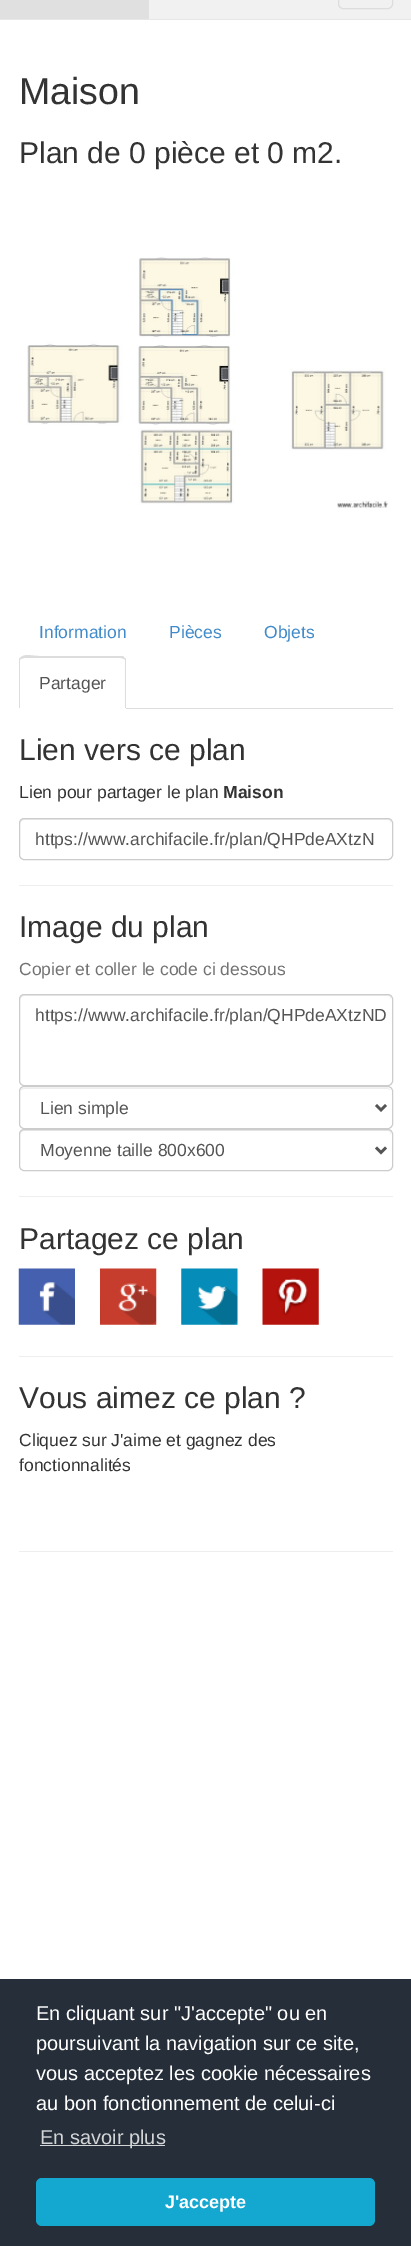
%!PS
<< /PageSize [411 2246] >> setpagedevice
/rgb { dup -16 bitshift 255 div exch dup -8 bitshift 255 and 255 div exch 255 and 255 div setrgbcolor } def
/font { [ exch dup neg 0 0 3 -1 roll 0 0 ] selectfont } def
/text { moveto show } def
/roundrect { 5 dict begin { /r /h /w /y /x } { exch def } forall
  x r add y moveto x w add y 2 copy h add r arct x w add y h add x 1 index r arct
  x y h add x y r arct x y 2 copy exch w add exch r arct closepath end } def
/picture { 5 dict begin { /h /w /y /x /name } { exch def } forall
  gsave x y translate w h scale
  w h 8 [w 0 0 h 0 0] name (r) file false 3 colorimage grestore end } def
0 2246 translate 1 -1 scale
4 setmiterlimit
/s1 { /LiberationSans-Regular 37.5 font 16#333333 rgb } def
/s2 { /LiberationSans-Regular 30 font 16#333333 rgb } def
/s3 { /LiberationSans-Regular 17.5 font 16#428BCA rgb } def
/s4 { /LiberationSans-Regular 17.5 font 16#555555 rgb } def
/s5 { /LiberationSans-Regular 17.5 font 16#333333 rgb } def
/s6 { /LiberationSans-Bold 17.5 font 16#333333 rgb } def
/s7 { /LiberationSans-Regular 17.5 font 16#737373 rgb } def
/s8 { /LiberationSans-Regular 20 font 16#FFFFFF rgb } def
/s9 { /LiberationSans-Regular 20 font 16#D3D5D7 rgb } def
/s10 { /LiberationSans-Bold 18 font 16#FFFFFF rgb } def
16#FFFFFF rgb
0 0 411 2246 rectfill
16#F1F1F1 rgb
149 0 262 19 rectfill
16#E7E7E7 rgb
0 19 411 1 rectfill
16#E0E0E0 rgb
0 0 149 19 rectfill
16#DDDDDD rgb
338.5 -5.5 54 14 4.5 roundrect stroke
s1
(Maison) 19 104 text
s2
(Plan de 0 pièce et 0 m2.) 19 163 text
(pic1.raw) 27 257 361 251 picture
16#DDDDDD rgb
126 708 267 1 rectfill
s3
(Information) 39 638 text
(Pièces) 169 638 text
(Objets) 264 638 text
16#DDDDDD rgb
24 658 moveto 21 659 lineto 20 658 lineto 24 653 33 656 39 656 curveto 123 656 lineto 125 658 lineto 124 659 lineto 121 658 lineto closepath fill
125 658 moveto 126 658 126 660 126 661 curveto 126 708 lineto 125 708 lineto 125 660 lineto 124 659 lineto closepath fill
19 708 moveto 19 661 lineto 19 660 19 658 20 658 curveto 21 659 lineto 20 660 lineto 20 708 lineto closepath fill
s4
(Partager) 39 689 text
s2
(Lien vers ce plan) 19 760 text
s5
(Lien pour partager le plan) 19 798 text
s6
(Maison) 223 798 text
16#ECECEC rgb
24 820 moveto 388 820 lineto 390 820 391 822 391 824 curveto 391 821 390 819 387 819 curveto 24 819 lineto 21 819 20 821 20 824 curveto 20 822 22 820 24 820 curveto closepath fill
16#CCCCCC rgb
19.5 818.5 373 41 4.5 roundrect stroke
s4
(https://www.archifacile.fr/plan/QHPdeAXtzN) 35 845 text
16#EEEEEE rgb
19 885 374 1 rectfill
s2
(Image du plan) 19 937 text
s7
(Copier et coller le code ci dessous) 19 975 text
16#ECECEC rgb
24 996 moveto 388 996 lineto 390 996 391 998 391 1000 curveto 391 997 390 995 387 995 curveto 24 995 lineto 21 995 20 997 20 1000 curveto 20 998 22 996 24 996 curveto closepath fill
16#CCCCCC rgb
19.5 994.5 373 91 4.5 roundrect stroke
s4
(https://www.archifacile.fr/plan/QHPdeAXtzND) 35 1021 text
16#ECECEC rgb
24 1089 moveto 388 1089 lineto 390 1090 lineto 390 1089 388 1088 387 1088 curveto 24 1088 lineto 22 1088 20 1090 20 1092 curveto 20 1090 22 1089 24 1089 curveto closepath fill
16#CCCCCC rgb
19.5 1086.5 373 42 4.5 roundrect stroke
16#555555 rgb
2.5 setlinewidth
376 1105 moveto 381 1110 lineto 386 1105 lineto stroke
(Lien simple) 40 1114 text
16#ECECEC rgb
24 1131 moveto 388 1131 lineto 390 1131 391 1133 391 1135 curveto 391 1132 390 1130 387 1130 curveto 24 1130 lineto 21 1130 20 1132 20 1135 curveto 20 1133 22 1131 24 1131 curveto closepath fill
16#CCCCCC rgb
1 setlinewidth
19.5 1129.5 373 41 4.5 roundrect stroke
16#555555 rgb
2.5 setlinewidth
376 1147.5 moveto 381 1152.5 lineto 386 1147.5 lineto stroke
(Moyenne taille 800x600) 40 1156 text
16#EEEEEE rgb
19 1196 374 1 rectfill
s2
(Partagez ce plan) 19 1249 text
(pic2.raw) 18 1268 57 57 picture
(pic3.raw) 100 1268 57 57 picture
(pic4.raw) 181 1268 57 57 picture
(pic5.raw) 262 1268 57 57 picture
16#EEEEEE rgb
19 1356 374 1 rectfill
s2
(Vous aimez ce plan ?) 19 1408 text
s5
(Cliquez sur J'aime et gagnez des) 19 1446 text
(fonctionnalités) 19 1471 text
16#EEEEEE rgb
19 1551 374 1 rectfill
16#252E39 rgb
0 1979 411 267 rectfill
s8
(En cliquant sur "J'accepte" ou en) 36 2020 text
(poursuivant la navigation sur ce site,) 36 2050 text
(vous acceptez les cookie nécessaires) 36 2080 text
(au bon fonctionnement de celui-ci) 36 2110 text
16#D3D5D7 rgb
40 2145 125 1 rectfill
(En savoir plus) 40 2144 text
16#14A7D0 rgb
36 2178 339 48 6 roundrect fill
s10
(J'accepte) 165 2208 text
showpage
